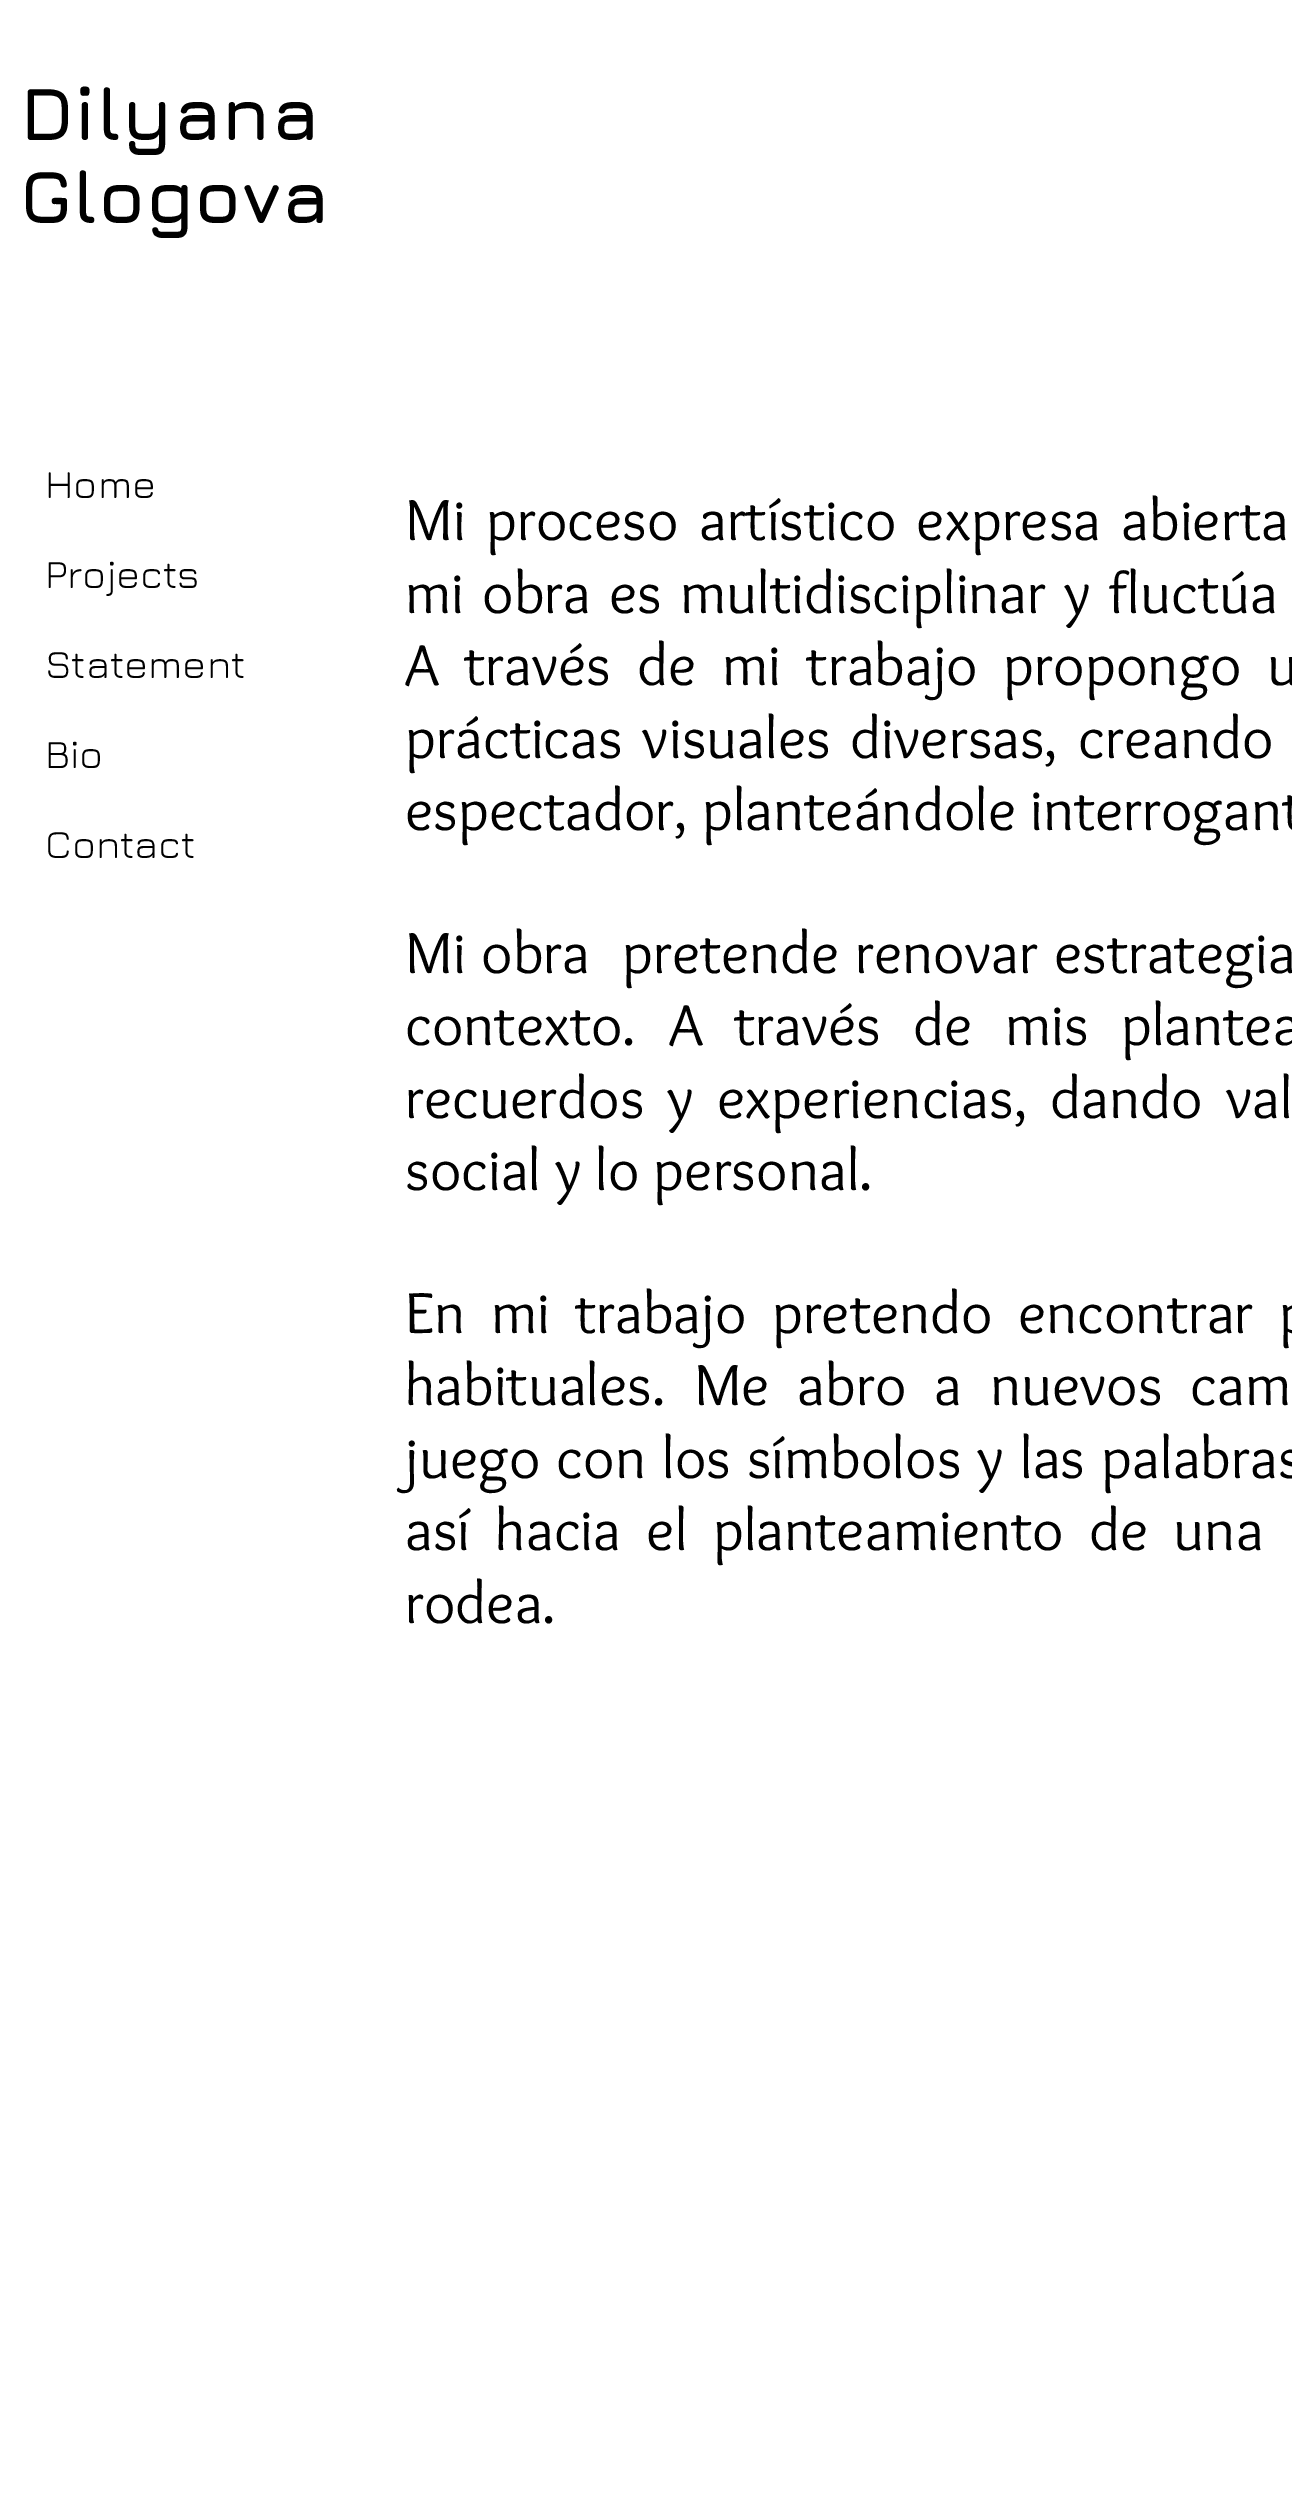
%!PS
<< /PageSize [1292 2520] >> setpagedevice
/rgb { dup -16 bitshift 255 div exch dup -8 bitshift 255 and 255 div exch 255 and 255 div setrgbcolor } def
/font { [ exch dup neg 0 0 3 -1 roll 0 0 ] selectfont } def
/text { moveto show } def
0 2520 translate 1 -1 scale
4 setmiterlimit
/s1 { /Jura-Bold 75 font 16#000000 rgb } def
/s2 { /Jura-Regular 40 font 16#000000 rgb } def
/s3 { /Overlock-Regular 60 font 16#000000 rgb } def
16#FFFFFF rgb
0 0 1292 2520 rectfill
s1
(Dilyana) 20 140 text
(Glogova) 20 223 text
s2
(Home) 45 498 text
(Projects) 45 588 text
(Statement) 45 678 text
(Bio) 45 768 text
(Contact) 45 858 text
/Overlock-Regular 60 font
405 540 moveto 6.5 0 32 (Mi proceso artístico expresa abierta) widthshow
405 613 moveto 4.25 0 32 (mi obra es multidisciplinar y fluctúa) widthshow
405 685 moveto 12 0 32 (A través de mi trabajo propongo u) widthshow
405 758 moveto 6 0 32 (prácticas visuales diversas, creando) widthshow
(espectador, planteándole interrogant) 405 830 text
405 973 moveto 2 0 32 (Mi obra  pretende renovar estrategia) widthshow
405 1045 moveto 18.5 0 32 (contexto. A través de mis plantea) widthshow
405 1118 moveto 9.5 0 32 (recuerdos y experiencias, dando val) widthshow
(social y lo personal.) 405 1190 text
405 1333 moveto 11.5 0 32 (En mi trabajo pretendo encontrar p) widthshow
405 1405 moveto 14 0 32 (habituales. Me abro a nuevos cam) widthshow
405 1478 moveto 2.25 0 32 (juego con los símbolos y las palabras) widthshow
405 1550 moveto 11.5 0 32 (así hacia el planteamiento de una) widthshow
(rodea.) 405 1623 text
showpage
